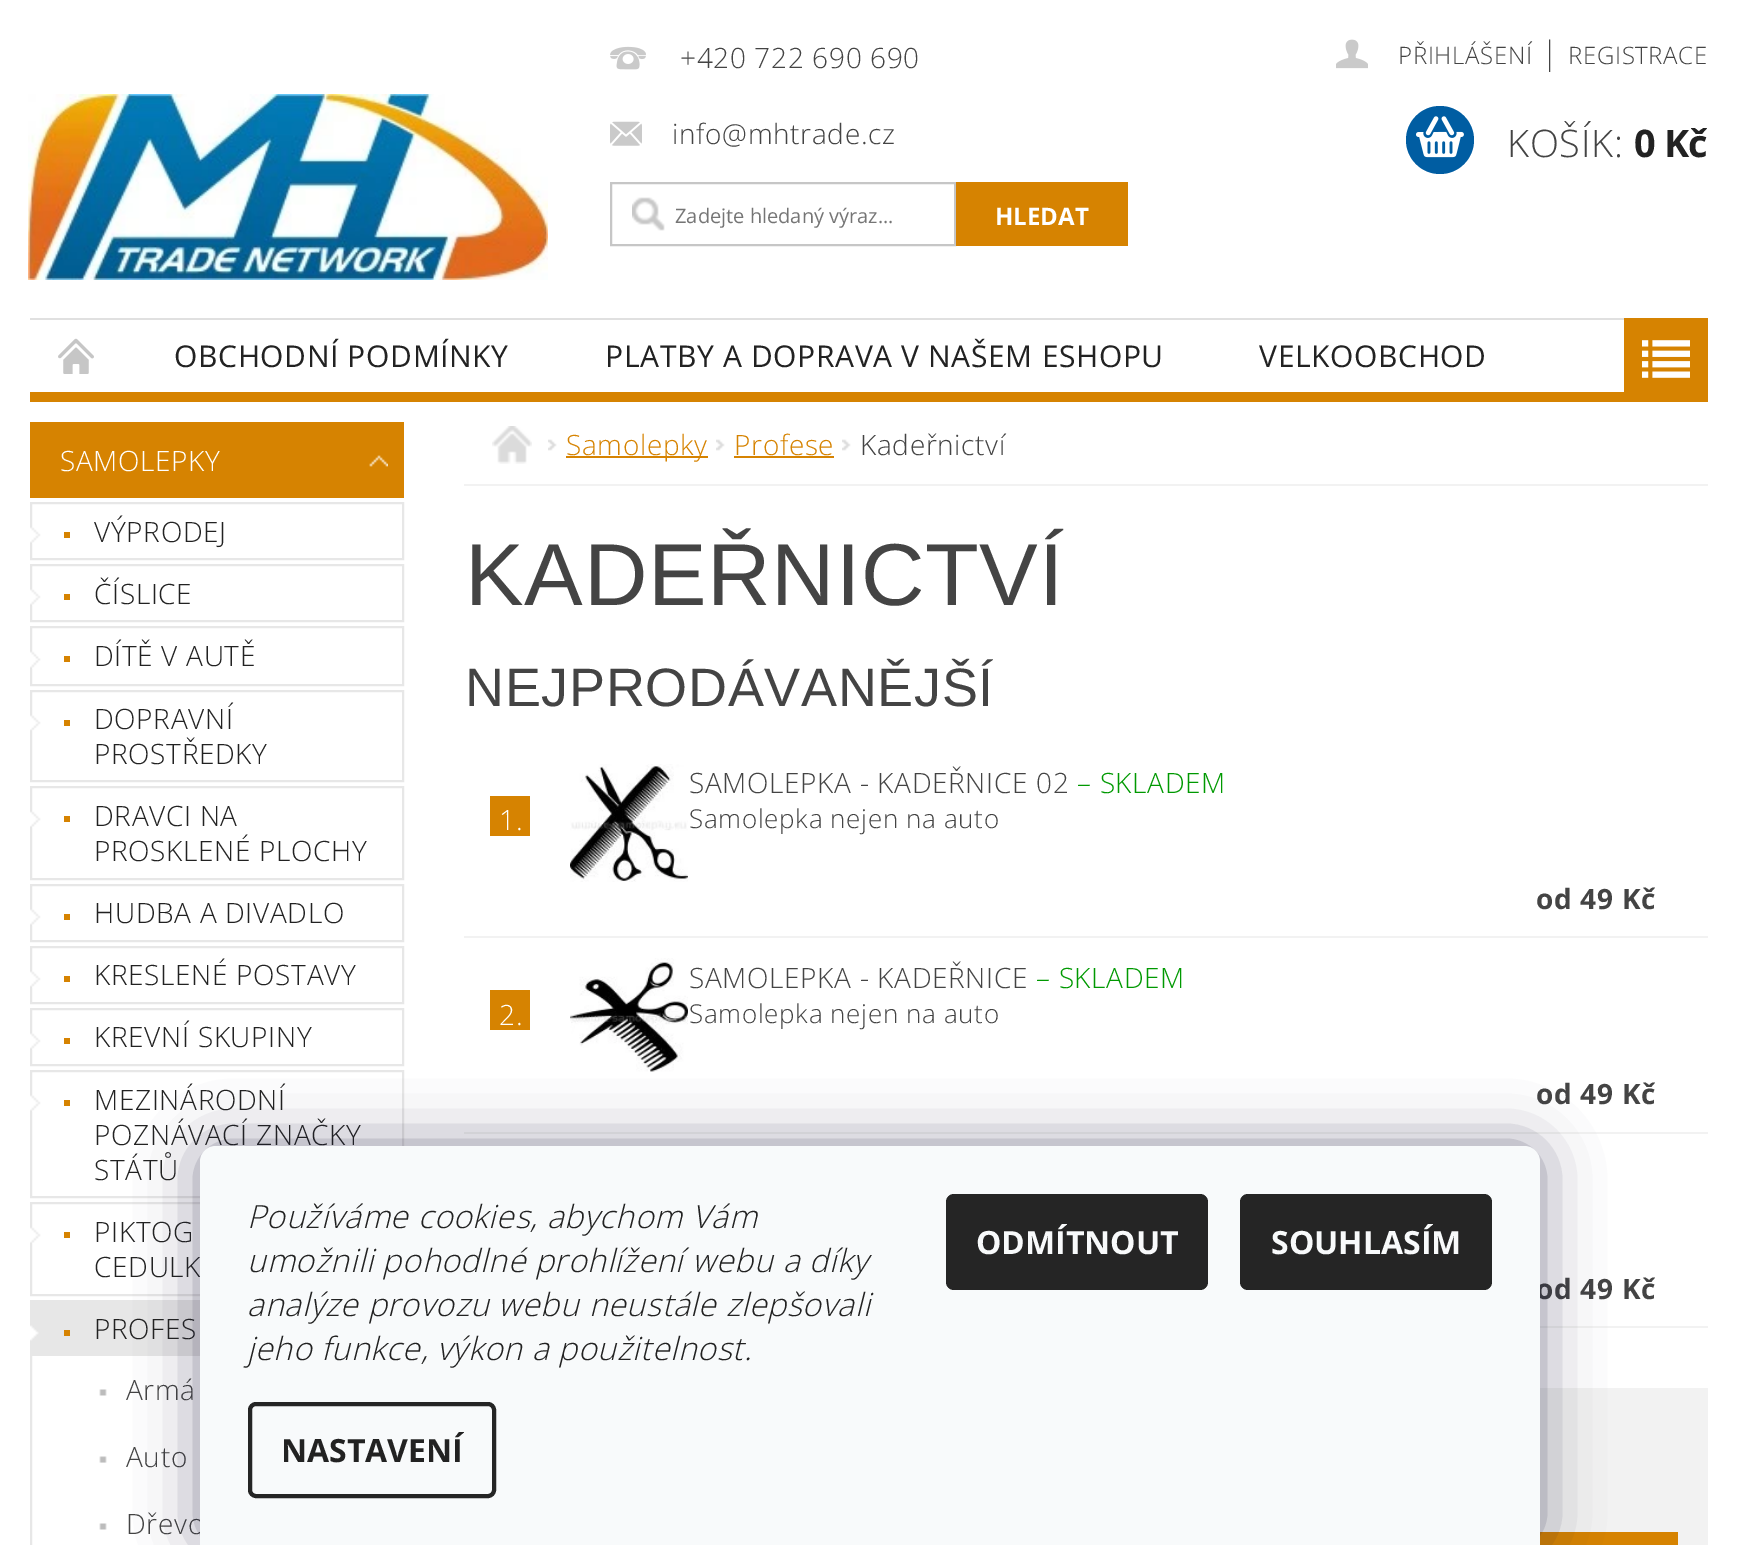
%!PS
<< /PageSize [1738 1545] /PageUsesTransparency true >> setpagedevice
/rgb { dup -16 bitshift 255 div exch dup -8 bitshift 255 and 255 div exch 255 and 255 div setrgbcolor } def
/font { [ exch dup neg 0 0 3 -1 roll 0 0 ] selectfont } def
/text { moveto show } def
/alpha { dup .setfillconstantalpha .setstrokeconstantalpha } def
/circle { newpath 0 360 arc closepath } def
/roundrect { 5 dict begin { /r /h /w /y /x } { exch def } forall
  x r add y moveto x w add y 2 copy h add r arct x w add y h add x 1 index r arct
  x y h add x y r arct x y 2 copy exch w add exch r arct closepath end } def
/shadow { 12 dict begin { /a /b /q /h /w /y /x } { exch def } forall gsave /was 0 def
  9 -2 -9 { dup b mul 4 div /e exch def 1 sub .425 mul 2.718 exch exp 1 add a .99 .min exch div /now exch def
    1 1 now sub 1 was sub div sub alpha /was now def
    w h .min e 2 mul add 0 gt { x e sub y e sub w e 2 mul add h e 2 mul add
      q e add b .6 mul add w h .min 2 div e add .min 0 .max roundrect fill } if } for grestore end } def
/picture { 5 dict begin { /h /w /y /x /name } { exch def } forall
  gsave x y translate w h scale
  w h 8 [w 0 0 h 0 0] name (r) file false 3 colorimage grestore end } def
0 .pushpdf14devicefilter
0 1545 translate 1 -1 scale
4 setmiterlimit
/s1 { /OpenSans-Regular 20 font 16#757575 rgb } def
/s2 { /OpenSans-Bold 24 font 16#FFFFFF rgb } def
/s3 { /OpenSans-Bold 32 font 16#222222 rgb } def
/s4 { /OpenSans-Bold 32 font 16#F8FAFB rgb } def
16#FFFFFF rgb
0 0 1738 1545 rectfill
16#D68301 rgb
30 392 1594 10 rectfill
(pic1.raw) 28 94 520 186 picture
(pic2.raw) 610 46 36 24 picture
/OpenSans-Light 28 font
16#444444 rgb
680 68 moveto 0.65 0 (+420 722 690 690) ashow
(pic3.raw) 610 121 32 25 picture
672 144 moveto 0.65 0 (info@mhtrade.cz) ashow
(pic4.raw) 632 197 33 34 picture
16#C6C6C6 rgb
2 setlinewidth
611 183 344 62 rectstroke
s1
(Zadejte hledaný výraz...) 675 223 text
16#D68301 rgb
956 182 172 64 rectfill
s2
(HLEDAT) 995 225 text
(pic5.raw) 1336 39 32 30 picture
/OpenSans-Light 24 font
16#444444 rgb
1398 64 moveto 0.65 0 (PŘIHLÁŠENÍ) ashow
/OpenSans-Light 32 font
1541 64 moveto 0.65 0 (|) ashow
/OpenSans-Light 24 font
1568 64 moveto 0.65 0 (REGISTRACE) ashow
16#005DA2 rgb
1440 140 34 circle fill
(pic6.raw) 1416 116 48 42 picture
/OpenSans-Light 38 font
16#444444 rgb
1507 157 moveto 0.65 0 (KOŠÍK:) ashow
/OpenSans-Bold 38 font
16#222222 rgb
1634 157 moveto -1 0 (0 Kč) ashow
16#E0E0E0 rgb
30 318 1594 2 rectfill
(pic7.raw) 58 338 36 36 picture
/OpenSans-Regular 30 font
16#222222 rgb
174 367 moveto 0.65 0 (OBCHODNÍ PODMÍNKY) ashow
605 367 moveto 0.65 0 (PLATBY A DOPRAVA V NAŠEM ESHOPU) ashow
1259 367 moveto 0.65 0 (VELKOOBCHOD) ashow
16#D68301 rgb
1624 318 84 84 rectfill
(pic8.raw) 1642 340 48 38 picture
30 422 374 76 rectfill
(pic9.raw) 369 455 19 12 picture
/OpenSans-Light 28 font
16#FFFFFF rgb
60 471 moveto 0.65 0 (SAMOLEPKY) ashow
16#E7E7E7 rgb
31 503 372 56 rectstroke
(pic10.raw) 30 526 11 18 picture
16#D68301 rgb
64 532 6 6 rectfill
16#222222 rgb
94 542 moveto 0.65 0 (VÝPRODEJ) ashow
16#E7E7E7 rgb
31 565 372 56 rectstroke
(pic10.raw) 30 588 11 18 picture
16#D68301 rgb
64 594 6 6 rectfill
16#222222 rgb
94 604 moveto 0.65 0 (ČÍSLICE) ashow
16#E7E7E7 rgb
31 627 372 58 rectstroke
(pic11.raw) 30 650 11 19 picture
16#D68301 rgb
64 656 6 6 rectfill
16#222222 rgb
94 666 moveto 0.65 0 (DÍTĚ V AUTĚ) ashow
16#E7E7E7 rgb
31 691 372 90 rectstroke
(pic12.raw) 30 714 11 17 picture
16#D68301 rgb
64 720 6 6 rectfill
16#222222 rgb
94 729 moveto 0.65 0 (DOPRAVNÍ) ashow
94 764 moveto 0.65 0 (PROSTŘEDKY) ashow
16#E7E7E7 rgb
31 787 372 92 rectstroke
(pic13.raw) 30 810 11 18 picture
16#D68301 rgb
64 816 6 6 rectfill
16#222222 rgb
94 826 moveto 0.65 0 (DRAVCI NA) ashow
94 861 moveto 0.65 0 (PROSKLENÉ PLOCHY) ashow
16#E7E7E7 rgb
31 885 372 56 rectstroke
(pic10.raw) 30 908 11 18 picture
16#D68301 rgb
64 914 6 6 rectfill
16#222222 rgb
94 923 moveto 0.65 0 (HUDBA A DIVADLO) ashow
16#E7E7E7 rgb
31 947 372 56 rectstroke
(pic10.raw) 30 970 11 18 picture
16#D68301 rgb
64 976 6 6 rectfill
16#222222 rgb
94 985 moveto 0.65 0 (KRESLENÉ POSTAVY) ashow
16#E7E7E7 rgb
31 1009 372 56 rectstroke
(pic10.raw) 30 1032 11 18 picture
16#D68301 rgb
64 1038 6 6 rectfill
16#222222 rgb
94 1047 moveto 0.65 0 (KREVNÍ SKUPINY) ashow
16#E7E7E7 rgb
31 1071 372 126 rectstroke
(pic10.raw) 30 1094 11 18 picture
16#D68301 rgb
64 1100 6 6 rectfill
16#222222 rgb
94 1110 moveto 0.65 0 (MEZINÁRODNÍ) ashow
94 1145 moveto 0.65 0 (POZNÁVACÍ ZNAČKY) ashow
94 1180 moveto 0.65 0 (STÁTŮ) ashow
16#E7E7E7 rgb
31 1203 372 92 rectstroke
(pic13.raw) 30 1226 11 18 picture
16#D68301 rgb
64 1232 6 6 rectfill
16#222222 rgb
94 1242 moveto 0.65 0 (PIKTOG) ashow
94 1277 moveto 0.65 0 (CEDULK) ashow
16#E7E7E7 rgb
31 1301 372 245 rectstroke
32 1302 168 54 rectfill
(pic14.raw) 30 1325 9 16 picture
16#D68301 rgb
64 1330 6 6 rectfill
16#222222 rgb
94 1339 moveto 0.65 0 (PROFES) ashow
(pic15.raw) 99 1389 8 7 picture
16#444444 rgb
126 1400 moveto 0.65 0 (Armá) ashow
(pic16.raw) 99 1456 8 7 picture
126 1467 moveto 0.65 0 (Auto) ashow
(pic15.raw) 99 1523 8 7 picture
126 1534 moveto 0.65 0 (Dřevo) ashow
16#F2F2F2 rgb
464 484 1244 2 rectfill
(pic17.raw) 492 426 40 38 picture
(pic18.raw) 548 439 9 12 picture
16#D68301 rgb
566 456 142 2 rectfill
566 455 moveto 0.65 0 (Samolepky) ashow
(pic18.raw) 716 439 9 12 picture
734 455 moveto 0.65 0 (Profese) ashow
734 456 100 2 rectfill
(pic18.raw) 842 439 9 12 picture
16#444444 rgb
860 455 moveto 0.65 0 (Kadeřnictví) ashow
/LiberationSans-Regular 88 font
465 605 moveto 0.65 0 (KADEŘNICTVÍ) ashow
/LiberationSans-Regular 54 font
465 706 moveto 0.65 0 (NEJPRODÁVANĚJŠÍ) ashow
16#F2F2F2 rgb
464 936 1244 2 rectfill
16#D68301 rgb
490 796 40 40 rectfill
/OpenSans-Light 28 font
16#FFFFFF rgb
499 830 moveto 0.65 0 (1.) ashow
(pic19.raw) 570 764 118 118 picture
16#444444 rgb
689 793 moveto 0.65 0 (SAMOLEPKA - KADEŘNICE 02) ashow
16#009901 rgb
1077 793 moveto 0.65 0 (– SKLADEM) ashow
/OpenSans-Light 26 font
16#444444 rgb
689 828 moveto 0.65 0 (Samolepka nejen na auto) ashow
/OpenSans-Bold 28 font
1536 909 moveto 0.65 0 (od 49 Kč) ashow
16#F2F2F2 rgb
464 1132 1244 2 rectfill
16#D68301 rgb
490 990 40 40 rectfill
/OpenSans-Light 28 font
16#FFFFFF rgb
499 1025 moveto 0.65 0 (2.) ashow
(pic20.raw) 570 958 118 114 picture
16#444444 rgb
689 988 moveto 0.65 0 (SAMOLEPKA - KADEŘNICE) ashow
16#009901 rgb
1036 988 moveto 0.65 0 (– SKLADEM) ashow
/OpenSans-Light 26 font
16#444444 rgb
689 1023 moveto 0.65 0 (Samolepka nejen na auto) ashow
/OpenSans-Bold 28 font
1536 1104 moveto 0.65 0 (od 49 Kč) ashow
16#F2F2F2 rgb
1540 1326 168 2 rectfill
16#444444 rgb
1536 1299 moveto 0.65 0 (od 49 Kč) ashow
16#F2F2F2 rgb
1540 1388 168 157 rectfill
16#D68301 rgb
1540 1532 138 13 rectfill
16#1B1939 rgb
200 1146 1340 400 16 30 0.5 shadow
16#F8FAFB rgb
216 1146 moveto 1524 1146 lineto 1533 1146 1540 1153 1540 1162 curveto 1540 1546 lineto 200 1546 lineto 200 1162 lineto 200 1153 207 1146 216 1146 curveto closepath fill
/OpenSans-LightItalic 32 font
16#222222 rgb
247 1228 moveto 0.65 0 (Používáme cookies, abychom Vám) ashow
247 1272 moveto 0.65 0 (umožnili pohodlné prohlížení webu a díky) ashow
247 1316 moveto 0.65 0 (analýze provozu webu neustále zlepšovali) ashow
247 1360 moveto 0.65 0 (jeho funkce, výkon a použitelnost.) ashow
16#252525 rgb
4 setlinewidth
250 1404 244 92 6 roundrect stroke
s3
(NASTAVENÍ) 281 1462 text
16#252525 rgb
946 1194 262 96 8 roundrect fill
s4
(ODMÍTNOUT) 976 1254 text
16#252525 rgb
1240 1194 252 96 8 roundrect fill
s4
(SOUHLASÍM) 1271 1254 text
.poppdf14devicefilter showpage
